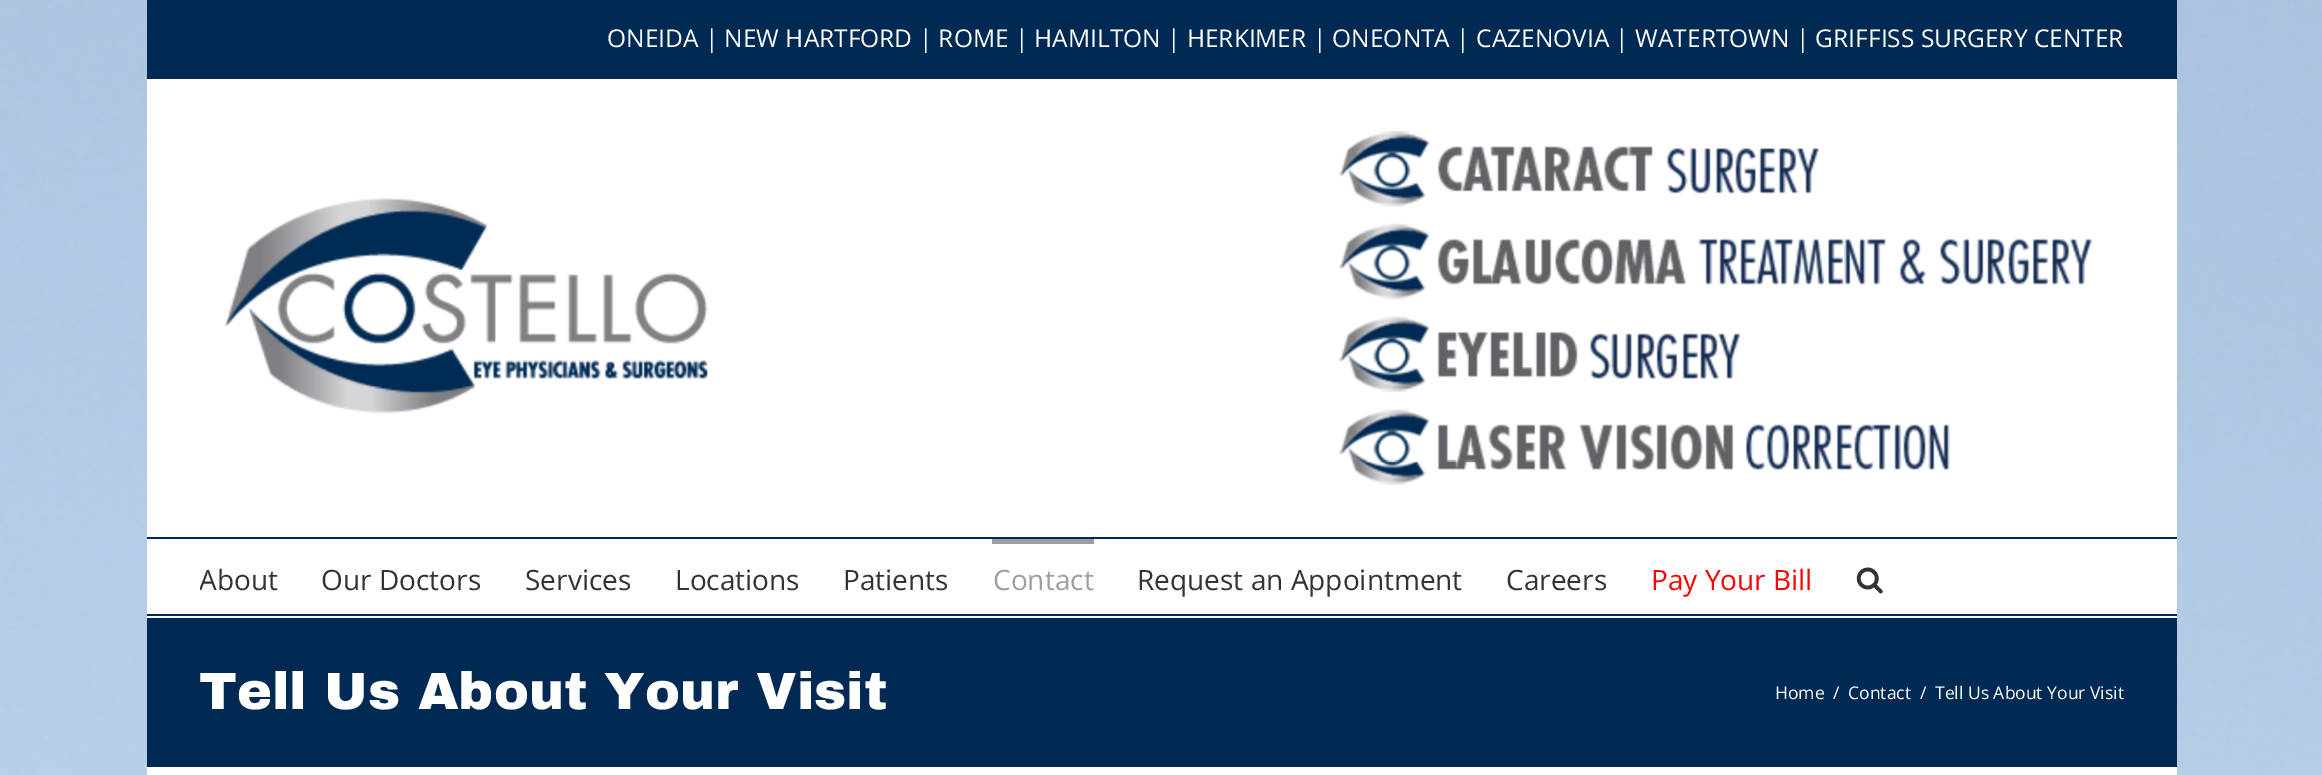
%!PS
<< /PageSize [2322 775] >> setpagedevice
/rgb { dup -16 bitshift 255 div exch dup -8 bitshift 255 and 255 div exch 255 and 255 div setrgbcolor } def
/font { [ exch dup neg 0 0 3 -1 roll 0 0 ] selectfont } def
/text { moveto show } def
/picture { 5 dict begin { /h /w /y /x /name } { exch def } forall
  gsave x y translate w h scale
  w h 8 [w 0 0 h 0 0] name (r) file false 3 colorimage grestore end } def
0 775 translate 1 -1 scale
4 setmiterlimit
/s1 { /OpenSans-Regular 24.5 font 16#FFFFFF rgb } def
/s2 { /OpenSans-Regular 28 font 16#333333 rgb } def
/s3 { /OpenSans-Regular 28 font 16#9E9E9E rgb } def
/s4 { /OpenSans-Regular 28 font 16#FF0000 rgb } def
/s5 { /ArchivoBlack-Black 52.5 font 16#FFFFFF rgb } def
/s6 { /OpenSans-Regular 17.5 font 16#FFFFFF rgb } def
16#FFFFFF rgb
0 0 2322 775 rectfill
(pic1.raw) 0 0 2322 775 picture
16#002A54 rgb
147 0 2030 79 rectfill
s1
(ONEIDA | NEW HARTFORD | ROME | HAMILTON | HERKIMER | ONEONTA | CAZENOVIA | WATERTOWN | GRIFFISS SURGERY CENTER) 607 47 text
147 79 2030 458 rectfill
16#002A54 rgb
147 537 2030 2 rectfill
(pic2.raw) 225 197 483 217 picture
(pic3.raw) 1338 131 481 76 picture
(pic4.raw) 1338 223 755 77 picture
(pic5.raw) 1338 316 403 77 picture
(pic6.raw) 1338 409 612 77 picture
16#FFFFFF rgb
147 539 2030 75 rectfill
16#002A54 rgb
147 614 2030 2 rectfill
gsave
200 539 122 75 rectclip
s2
(About) 199 590 text
grestore
s2
(Our Doctors) 321 590 text
(Services) 525 590 text
(Locations) 675 590 text
(Patients) 843 590 text
16#9E9E9E rgb
992 539 102 5 rectfill
(Contact) 993 590 text
s2
(Request an Appointment) 1137 590 text
(Careers) 1506 590 text
s4
(Pay Your Bill) 1651 590 text
(pic7.raw) 1856 567 27 27 picture
16#002A54 rgb
147 618 2030 149 rectfill
16#FFFFFF rgb
147 616 2030 2 rectfill
147 767 2030 8 rectfill
s5
(Tell Us About Your Visit) 199 709 text
s6
(Home) 1775 699 text
(/) 1833 699 text
(Contact) 1848 699 text
(/) 1920 699 text
(Tell Us About Your Visit) 1935 699 text
showpage
